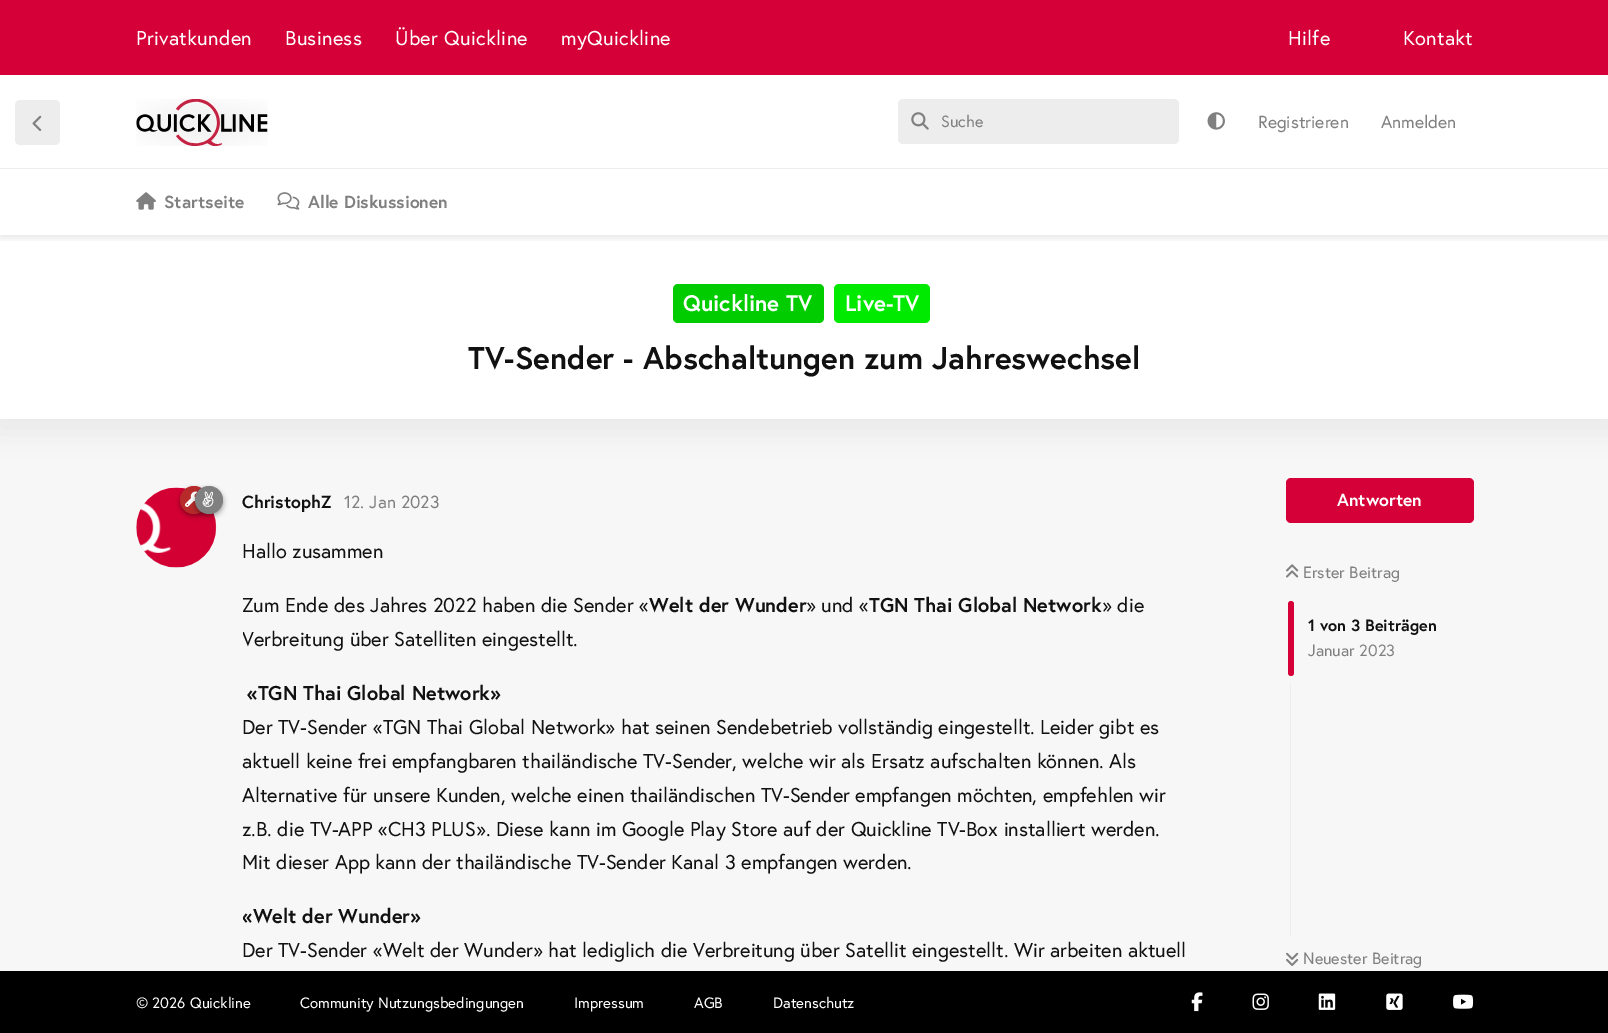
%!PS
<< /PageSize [1608 1033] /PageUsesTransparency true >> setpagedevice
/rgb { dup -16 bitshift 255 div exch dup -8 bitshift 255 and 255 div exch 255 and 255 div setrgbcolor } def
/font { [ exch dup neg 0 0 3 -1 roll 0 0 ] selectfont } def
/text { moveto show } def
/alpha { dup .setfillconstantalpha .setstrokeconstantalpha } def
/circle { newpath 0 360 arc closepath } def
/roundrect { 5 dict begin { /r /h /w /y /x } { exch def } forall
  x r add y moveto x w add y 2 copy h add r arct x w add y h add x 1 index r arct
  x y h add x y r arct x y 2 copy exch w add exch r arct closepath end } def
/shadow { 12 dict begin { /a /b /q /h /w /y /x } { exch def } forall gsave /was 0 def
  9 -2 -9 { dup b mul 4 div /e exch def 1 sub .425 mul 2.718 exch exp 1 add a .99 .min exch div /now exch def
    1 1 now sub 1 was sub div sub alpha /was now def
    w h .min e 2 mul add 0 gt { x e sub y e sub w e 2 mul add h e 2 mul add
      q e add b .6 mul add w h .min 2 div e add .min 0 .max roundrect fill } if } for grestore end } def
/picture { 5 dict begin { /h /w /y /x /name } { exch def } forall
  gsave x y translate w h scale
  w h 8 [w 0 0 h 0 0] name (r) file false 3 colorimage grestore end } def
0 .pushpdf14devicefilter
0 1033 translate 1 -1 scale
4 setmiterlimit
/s1 { /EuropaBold-Bold 17.5 font 16#808080 rgb } def
/s2 { /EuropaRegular-Regular 16.25 font 16#808080 rgb } def
/s3 { /EuropaRegular-Regular 17.5 font 16#808080 rgb } def
/s4 { /EuropaBold-Bold 22.5 font 16#FFFFFF rgb } def
/s5 { /EuropaBold-Bold 31.25 font 16#111111 rgb } def
/s6 { /EuropaBold-Bold 17.5 font 16#111111 rgb } def
/s7 { /EuropaRegular-Regular 20 font 16#111111 rgb } def
/s8 { /EuropaBold-Bold 20 font 16#111111 rgb } def
/s9 { /EuropaBold-Bold 17.5 font 16#FFFFFF rgb } def
/s10 { /EuropaBold-Bold 16.25 font 16#111111 rgb } def
/s11 { /EuropaRegular-Regular 15 font 16#FFFFFF rgb } def
16#F7F7F7 rgb
0 0 1608 1033 rectfill
16#FFFFFF rgb
0 75 1608 93 rectfill
16#EDEDED rgb
15 100 45 45 5 roundrect fill
(pic1.raw) 32 115 10 16 picture
16#111111 rgb
-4 239 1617 194 0 15 0.06 shadow
16#FFFFFF rgb
0 169 1608 250 rectfill
(pic2.raw) 136 192 20 18 picture
(pic3.raw) 277 192 23 18 picture
16#EDEDED rgb
0 168 1608 1 rectfill
(pic4.raw) 136 99 132 47 picture
898 99 281 45 5 roundrect fill
(pic5.raw) 911 112 18 18 picture
(pic6.raw) 1207 112 18 18 picture
gsave
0 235 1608 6 rectclip
16#000000 rgb
0 4 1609 234 0 4 0.1 shadow
grestore
16#D40037 rgb
0 0 1608 75 rectfill
/EuropaRegular-Regular 20 font
16#FFFFFF rgb
136 45 moveto 0.3 0 (Privatkunden) ashow
285 45 moveto 0.3 0 (Business) ashow
395 45 moveto 0.3 0 (Über Quickline) ashow
561 45 moveto 0.3 0 (myQuickline) ashow
1288 45 moveto 0.3 0 (Hilfe) ashow
1403 45 moveto 0.3 0 (Kontakt) ashow
s1
(Startseite) 164 208 text
(Alle Diskussionen) 308 208 text
s2
(Suche) 941 127 text
s3
(Registrieren) 1258 128 text
(Anmelden) 1381 128 text
16#00CC00 rgb
673 284 151 39 5 roundrect fill
s4
(Quickline TV) 683 311 text
16#00EA00 rgb
834 284 96 39 5 roundrect fill
s4
(Live-TV) 845 311 text
s5
(TV-Sender - Abschaltungen zum Jahreswechsel) 468 369 text
16#EDEDED rgb
176 528 40 circle fill
(pic9.raw) 136 487 81 81 picture
16#000000 rgb
180 489 28 27 13.5 2.5 0.35 shadow
16#B72A2A rgb
194 500 14 circle fill
(pic7.raw) 185 491 13 16 picture
16#000000 rgb
195 489 28 27 13.5 2.5 0.35 shadow
16#808080 rgb
209 500 14 circle fill
(pic8.raw) 202 491 12 16 picture
s6
(ChristophZ) 242 508 text
s3
(12. Jan 2023) 344 508 text
s7
(Hallo zusammen) 242 558 text
gsave
243 533 950 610 rectclip
(Zum Ende des Jahres 2022 haben die Sender «) 242 612 text
grestore
s8
(Welt der Wunder) 649 612 text
s7
(» und «) 806 612 text
s8
(TGN Thai Global Network) 869 612 text
s7
(» die) 1102 612 text
gsave
243 533 950 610 rectclip
(Verbreitung über Satelliten eingestellt.) 242 646 text
grestore
s8
(«TGN Thai Global Network») 247 700 text
s7
(Der TV-Sender «TGN Thai Global Network» hat seinen Sendebetrieb vollständig eingestellt. Leider gibt es) 242 734 text
(aktuell keine frei empfangbaren thailändische TV-Sender, welche wir als Ersatz aufschalten können. Als) 242 768 text
(Alternative für unsere Kunden, welche einen thailändischen TV-Sender empfangen möchten, empfehlen wir) 242 802 text
(z.B. die TV-APP «CH3 PLUS». Diese kann im Google Play Store auf der Quickline TV-Box installiert werden.) 242 836 text
(Mit dieser App kann der thailändische TV-Sender Kanal 3 empfangen werden.) 242 869 text
gsave
243 533 950 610 rectclip
s8
(«Welt der Wunder») 242 923 text
grestore
(Der TV-Sender «Welt der Wunder» hat lediglich die Verbreitung über Satellit eingestellt. Wir arbeiten aktuell) 242 957 text
16#D40037 rgb
1286 478 188 45 5 roundrect fill
s9
(Antworten) 1337 506 text
(pic10.raw) 1286 564 13 14 picture
s2
(Erster Beitrag) 1303 578 text
16#D40037 rgb
1288 601 6 75 3 roundrect fill
s10
(1 von 3 Beiträgen) 1308 631 text
s2
(Januar 2023) 1308 656 text
16#EDEDED rgb
1290 683 1 253 rectfill
(pic11.raw) 1286 952 13 14 picture
s2
(Neuester Beitrag) 1303 964 text
16#000000 rgb
0 971 1608 62 rectfill
s11
(© 2026 Quickline) 136 1008 text
(Community Nutzungsbedingungen) 300 1008 text
(Impressum) 574 1008 text
(AGB) 694 1008 text
(Datenschutz) 773 1008 text
(pic12.raw) 1191 992 12 20 picture
(pic13.raw) 1252 993 17 17 picture
(pic14.raw) 1318 993 18 17 picture
(pic15.raw) 1386 993 17 17 picture
(pic16.raw) 1453 994 21 15 picture
.poppdf14devicefilter showpage
